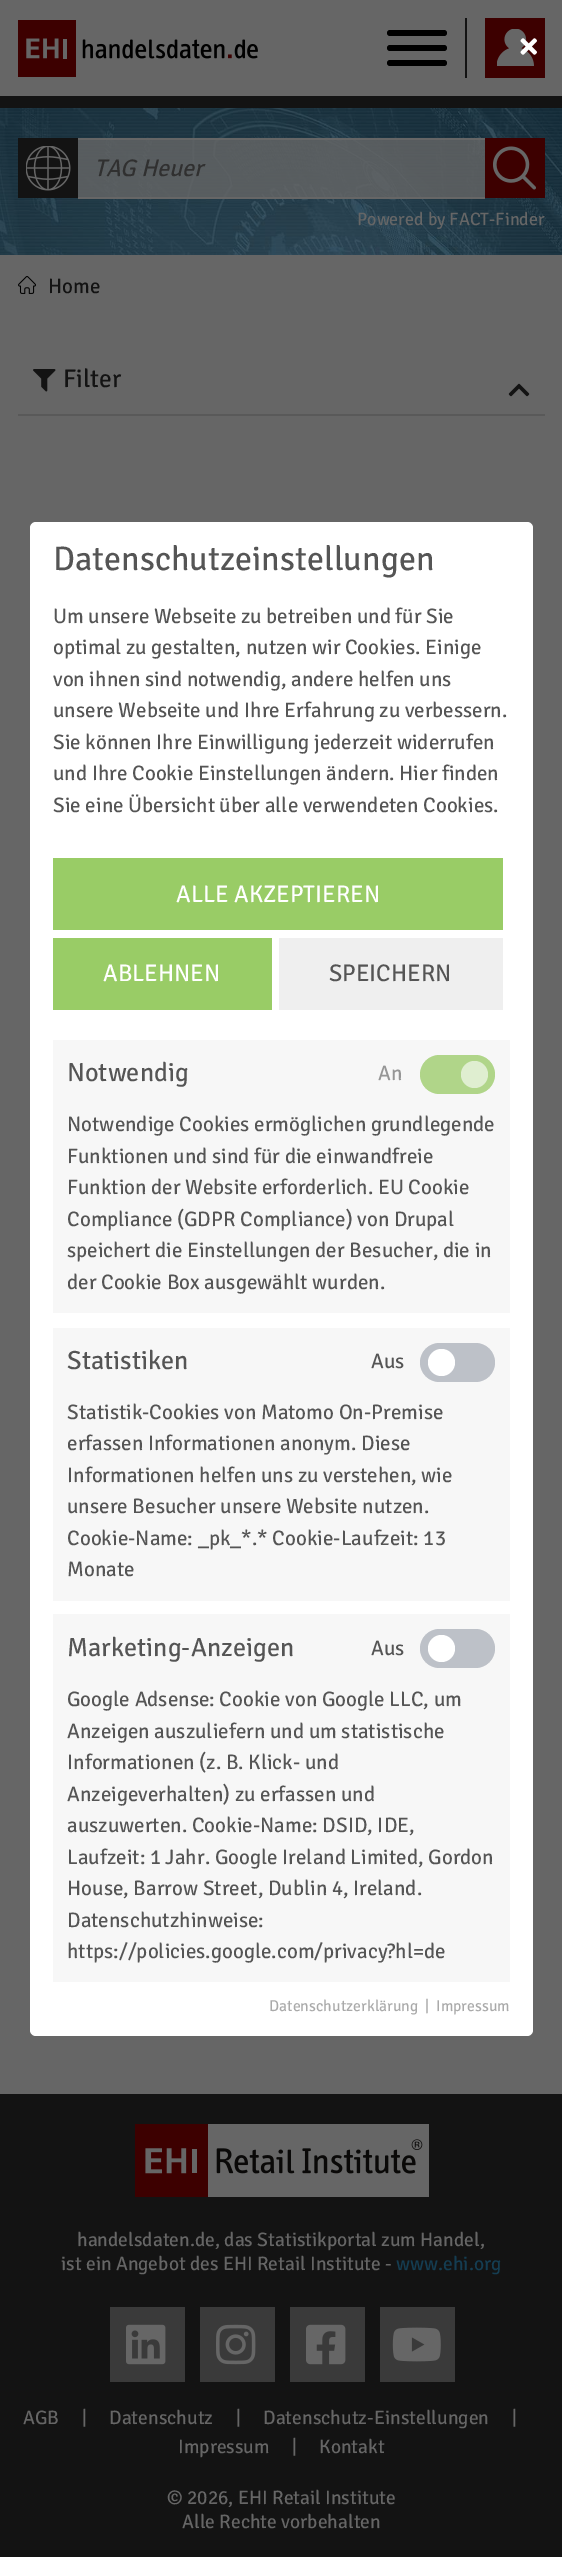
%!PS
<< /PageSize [562 2557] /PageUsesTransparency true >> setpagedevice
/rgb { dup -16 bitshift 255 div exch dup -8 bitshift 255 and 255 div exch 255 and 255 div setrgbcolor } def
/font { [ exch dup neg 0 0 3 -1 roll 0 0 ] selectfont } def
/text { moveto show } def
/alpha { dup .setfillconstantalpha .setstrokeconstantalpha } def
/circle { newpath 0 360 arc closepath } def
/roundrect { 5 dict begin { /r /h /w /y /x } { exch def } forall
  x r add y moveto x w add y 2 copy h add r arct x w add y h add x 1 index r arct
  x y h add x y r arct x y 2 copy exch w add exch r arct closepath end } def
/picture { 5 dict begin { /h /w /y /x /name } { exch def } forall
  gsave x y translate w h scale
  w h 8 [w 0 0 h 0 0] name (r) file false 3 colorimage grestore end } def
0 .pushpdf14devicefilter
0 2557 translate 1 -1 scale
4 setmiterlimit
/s1 { /SignikaNegative-Italic 24 font 16#303030 rgb } def
/s2 { /SignikaNegative-Regular 18 font 16#666666 rgb } def
/s3 { /SignikaNegative-Regular 21 font 16#131313 rgb } def
/s4 { /SignikaNegative-Regular 25.5 font 16#131313 rgb } def
/s5 { /SignikaNegative-Regular 19.5 font 16#666666 rgb } def
/s6 { /SignikaNegative-Regular 19.5 font 16#143D52 rgb } def
/s7 { /SignikaNegative-Regular 34.1 font 16#555555 rgb } def
/s8 { /SignikaNegative-Regular 21 font 16#555555 rgb } def
/s9 { /SignikaNegative-Regular 24 font 16#FFFFFF rgb } def
/s10 { /SignikaNegative-Regular 24 font 16#555555 rgb } def
/s11 { /SignikaNegative-Regular 26.25 font 16#555555 rgb } def
/s12 { /SignikaNegative-Regular 21 font 16#969696 rgb } def
/s13 { /SignikaNegative-Regular 15.75 font 16#AAAAAA rgb } def
16#666666 rgb
0 0 562 2557 rectfill
16#131313 rgb
0 96 562 12 rectfill
(pic1.raw) 18 20 240 57 picture
16#000000 rgb
387 45 60 6 3 roundrect fill
387 30 60 6 3 roundrect fill
387 60 60 6 3 roundrect fill
16#131313 rgb
465 18 2 60 rectfill
16#3D0000 rgb
485 18 60 60 rectfill
(pic2.raw) 497 29 37 37 picture
(pic3.raw) 0 108 562 147 picture
16#131313 rgb
18 138 60 60 rectfill
(pic4.raw) 26 146 45 45 picture
0.8 alpha
16#666666 rgb
78 140 407 57 rectfill
1 alpha
78 138 407 2 rectfill
78 197 407 2 rectfill
s1
(TAG Heuer) 94 176 text
16#3D0000 rgb
485 138 60 60 rectfill
(pic5.raw) 493 146 43 44 picture
s2
(Powered by FACT-Finder) 357 225 text
(pic6.raw) 18 276 18 18 picture
s3
(Home) 48 293 text
(pic7.raw) 33 369 23 23 picture
s4
(Filter) 63 387 text
16#595959 rgb
18 414 527 2 rectfill
(pic8.raw) 508 383 22 14 picture
16#131313 rgb
0 2094 562 463 rectfill
(pic9.raw) 135 2124 294 73 picture
s5
(handelsdaten.de, das Statistikportal zum Handel,) 77 2246 text
(ist ein Angebot des EHI Retail Institute -) 61 2270 text
s6
(www.ehi.org) 396 2270 text
16#3A3A3A rgb
110 2307 75 75 rectfill
(pic10.raw) 126 2324 40 41 picture
200 2307 75 75 rectfill
(pic11.raw) 216 2324 40 41 picture
290 2307 75 75 rectfill
(pic12.raw) 306 2324 40 41 picture
380 2307 75 75 rectfill
(pic13.raw) 392 2327 49 35 picture
s5
(AGB) 23 2424 text
(|) 82 2424 text
(Datenschutz) 109 2424 text
(|) 236 2424 text
(Datenschutz-Einstellungen) 263 2424 text
(|) 512 2424 text
(Impressum) 178 2453 text
(|) 292 2453 text
(Kontakt) 319 2453 text
(© 2026, EHI Retail Institute) 167 2504 text
(Alle Rechte vorbehalten) 182 2528 text
16#FFFFFF rgb
30 522 503 1514 6 roundrect fill
(pic14.raw) 520 38 17 17 picture
s7
(Datenschutzeinstellungen) 53 570 text
s8
(Um unsere Webseite zu betreiben und für Sie) 53 623 text
(optimal zu gestalten, nutzen wir Cookies. Einige) 53 654 text
(von ihnen sind notwendig, andere helfen uns) 53 686 text
(unsere Webseite und Ihre Erfahrung zu verbessern.) 53 717 text
(Sie können Ihre Einwilligung jederzeit widerrufen) 53 749 text
(und Ihre Cookie Einstellungen ändern. Hier finden) 53 780 text
(Sie eine Übersicht über alle verwendeten Cookies.) 53 812 text
16#99CC66 rgb
53 858 450 72 rectfill
s9
(ALLE AKZEPTIEREN) 176 902 text
16#99CC66 rgb
53 938 219 72 rectfill
s9
(ABLEHNEN) 103 981 text
16#EFEFEF rgb
279 938 224 72 rectfill
s10
(SPEICHERN) 329 981 text
16#F7F7F7 rgb
53 1040 457 273 rectfill
s11
(Notwendig) 67 1081 text
16#B0D589 rgb
420 1055 75 39 19.5 roundrect fill
s12
(An) 378 1080 text
16#DFEED0 rgb
474.5 1074.5 13.5 circle fill
s8
(Notwendige Cookies ermöglichen grundlegende) 67 1131 text
(Funktionen und sind für die einwandfreie) 67 1163 text
(Funktion der Website erforderlich. EU Cookie) 67 1194 text
(Compliance \(GDPR Compliance\) von Drupal) 67 1226 text
(speichert die Einstellungen der Besucher, die in) 67 1257 text
(der Cookie Box ausgewählt wurden.) 67 1289 text
16#F7F7F7 rgb
53 1328 457 273 rectfill
s11
(Statistiken) 67 1369 text
16#BDC1C8 rgb
420 1343 75 39 19.5 roundrect fill
s8
(Aus) 371 1368 text
16#FFFFFF rgb
441.5 1362.5 13.5 circle fill
s8
(Statistik-Cookies von Matomo On-Premise) 67 1419 text
(erfassen Informationen anonym. Diese) 67 1450 text
(Informationen helfen uns zu verstehen, wie) 67 1482 text
(unsere Besucher unsere Website nutzen.) 67 1513 text
(Cookie-Name: _pk_*.* Cookie-Laufzeit: 13) 67 1545 text
(Monate) 67 1576 text
16#F7F7F7 rgb
53 1614 457 368 rectfill
s11
(Marketing-Anzeigen) 67 1656 text
16#BDC1C8 rgb
420 1629 75 39 19.5 roundrect fill
s8
(Aus) 371 1655 text
16#FFFFFF rgb
441.5 1648.5 13.5 circle fill
s8
(Google Adsense: Cookie von Google LLC, um) 67 1706 text
(Anzeigen auszuliefern und um statistische) 67 1738 text
(Informationen \(z. B. Klick- und) 67 1769 text
(Anzeigeverhalten\) zu erfassen und) 67 1801 text
(auszuwerten. Cookie-Name: DSID, IDE,) 67 1832 text
(Laufzeit: 1 Jahr. Google Ireland Limited, Gordon) 67 1864 text
(House, Barrow Street, Dublin 4, Ireland.) 67 1895 text
(Datenschutzhinweise:) 67 1927 text
(https://policies.google.com/privacy?hl=de) 67 1958 text
s13
(Datenschutzerklärung) 269 2011 text
(|) 425 2011 text
(Impressum) 436 2011 text
.poppdf14devicefilter showpage
